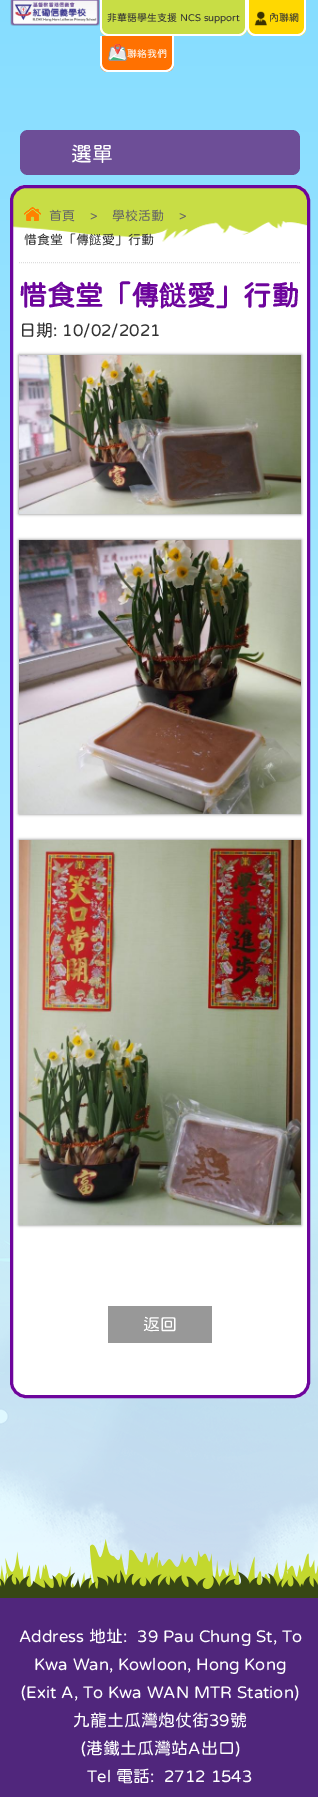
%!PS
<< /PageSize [318 1797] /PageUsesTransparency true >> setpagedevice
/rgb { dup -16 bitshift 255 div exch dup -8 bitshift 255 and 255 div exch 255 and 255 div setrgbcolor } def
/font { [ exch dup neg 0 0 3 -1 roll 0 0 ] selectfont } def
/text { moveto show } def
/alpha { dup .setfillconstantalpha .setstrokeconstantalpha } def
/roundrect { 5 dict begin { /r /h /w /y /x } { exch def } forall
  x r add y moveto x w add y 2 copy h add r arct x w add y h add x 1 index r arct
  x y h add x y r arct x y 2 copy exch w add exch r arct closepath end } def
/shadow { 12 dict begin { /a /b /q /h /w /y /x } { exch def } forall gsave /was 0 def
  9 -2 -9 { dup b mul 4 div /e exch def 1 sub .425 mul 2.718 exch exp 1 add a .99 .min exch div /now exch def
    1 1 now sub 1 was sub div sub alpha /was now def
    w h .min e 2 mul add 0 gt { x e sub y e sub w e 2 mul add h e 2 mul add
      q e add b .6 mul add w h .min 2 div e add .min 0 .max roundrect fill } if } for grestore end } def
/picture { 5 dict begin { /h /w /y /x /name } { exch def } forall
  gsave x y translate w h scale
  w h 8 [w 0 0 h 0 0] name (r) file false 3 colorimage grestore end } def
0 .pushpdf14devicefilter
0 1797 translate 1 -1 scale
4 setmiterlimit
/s1 { /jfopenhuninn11-Regular 10 font 16#333333 rgb } def
/s2 { /jfopenhuninn11-Regular 10 font 16#FFFFFF rgb } def
/s3 { /jfopenhuninn11-Regular 21 font 16#FFFFFF rgb } def
/s4 { /jfopenhuninn11-Regular 13 font 16#666666 rgb } def
/s5 { /jfopenhuninn11-Regular 13 font 16#333333 rgb } def
/s6 { /WenQuanYiZenHei-Medium 13 font 16#333333 rgb } def
/s7 { /jfopenhuninn11-Bold 28 font 16#6D059C rgb } def
/s8 { /WenQuanYiZenHei-Bold 28 font 16#6D059C rgb } def
/s9 { /jfopenhuninn11-Regular 17 font 16#333333 rgb } def
/s10 { /jfopenhuninn11-Regular 17 font 16#FFFFFF rgb } def
16#FFFFFF rgb
0 0 318 1797 rectfill
gsave 0 0 moveto 318 0 lineto 318 1588 lineto 0 1588 lineto closepath clip newpath
<< /ShadingType 2 /ColorSpace /DeviceRGB /Coords [159 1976 159 0] /Extend [true true] /Function << /FunctionType 3 /Domain [0 1] /Functions [<< /FunctionType 2 /Domain [0 1] /C0 [1 1 1] /C1 [0.773 0.949 1] /N 1 >> << /FunctionType 2 /Domain [0 1] /C0 [0.773 0.949 1] /C1 [0.525 0.867 1] /N 1 >>] /Bounds [0.3] /Encode [0 1 0 1] >> >> shfill grestore
(pic1.raw) 10 0 90 26 picture
16#C8DD45 rgb
100 0 moveto 247 0 lineto 247 28 lineto 247 32.5 243.5 36 239 36 curveto 108 36 lineto 103.5 36 100 32.5 100 28 curveto closepath fill
16#FFFFFF rgb
100 0 moveto 247 0 lineto 247 28 lineto 247 32 243 36 239 36 curveto 108 36 lineto 104 36 100 32 100 28 curveto closepath 102 0 moveto 245 0 lineto 245 28 lineto 245 31 242 34 239 34 curveto 108 34 lineto 105 34 102 31 102 28 curveto closepath eofill
s1
(非華語學生支援 NCS support) 107 21 text
16#FFD801 rgb
247 0 moveto 306 0 lineto 306 28 lineto 306 32.5 302.5 36 298 36 curveto 255 36 lineto 250.5 36 247 32.5 247 28 curveto closepath fill
16#FFFFFF rgb
247 0 moveto 306 0 lineto 306 28 lineto 306 32 302 36 298 36 curveto 255 36 lineto 251 36 247 32 247 28 curveto closepath 249 0 moveto 304 0 lineto 304 28 lineto 304 31 301 34 298 34 curveto 255 34 lineto 252 34 249 31 249 28 curveto closepath eofill
(pic2.raw) 254 11 13 15 picture
s1
(內聯網) 269 21 text
16#FF7101 rgb
100 36 moveto 174 36 lineto 174 64 lineto 174 68.5 170.5 72 166 72 curveto 108 72 lineto 103.5 72 100 68.5 100 64 curveto closepath fill
16#FFFFFF rgb
100 36 moveto 174 36 lineto 174 64 lineto 174 68 170 72 166 72 curveto 108 72 lineto 104 72 100 68 100 64 curveto closepath 102 36 moveto 172 36 lineto 172 64 lineto 172 67 169 70 166 70 curveto 108 70 lineto 105 70 102 67 102 64 curveto closepath eofill
(pic3.raw) 108 44 19 17 picture
(聯絡我們) 127 57 text
(pic4.raw) 0 1138 318 460 picture
16#6D4E97 rgb
20 130 280 45 8 roundrect fill
s3
(選單) 71 161 text
10 185 300 1213 16 roundrect fill
(pic5.raw) 10 188 300 54 picture
16#6D059C rgb
3 setlinewidth
11.5 186.5 297 1210 14.5 roundrect stroke
16#DDDDDD rgb
1 setlinewidth
[1 1] 0 setdash
19 262.5 moveto 301 262.5 lineto stroke
(pic6.raw) 24 207 17 14 picture
s4
(首頁) 49 220 text
(>) 90 220 text
(學校活動) 112 220 text
(>) 179 220 text
s5
(惜食堂「傳) 24 244 text
s6
(餸) 89 244 text
s5
(愛」行動) 102 244 text
s7
(惜食堂「傳) 19 305 text
s8
(餸) 159 305 text
s7
(愛」行動) 187 305 text
s9
(日期: 10/02/2021) 19 336 text
16#000000 rgb
19 355 282 159 0 1.5 0.5 shadow
(pic7.raw) 19 355 282 159 picture
19 540 282 274 0 1.5 0.5 shadow
(pic8.raw) 19 540 282 274 picture
19 840 282 385 0 1.5 0.5 shadow
(pic9.raw) 19 840 282 385 picture
16#989898 rgb
108 1306 104 37 rectfill
s10
(返回) 143 1330 text
16#50267C rgb
0 1598 318 199 rectfill
s10
(Address 地址:  39 Pau Chung St, To) 19 1642 text
(Kwa Wan, Kowloon, Hong Kong) 34 1670 text
(\(Exit A, To Kwa WAN MTR Station\)) 21 1698 text
(九龍土瓜灣炮仗街39號) 73 1726 text
(\(港鐵土瓜灣站A出口\)) 81 1754 text
(Tel 電話:  2712 1543) 87 1782 text
.poppdf14devicefilter showpage
